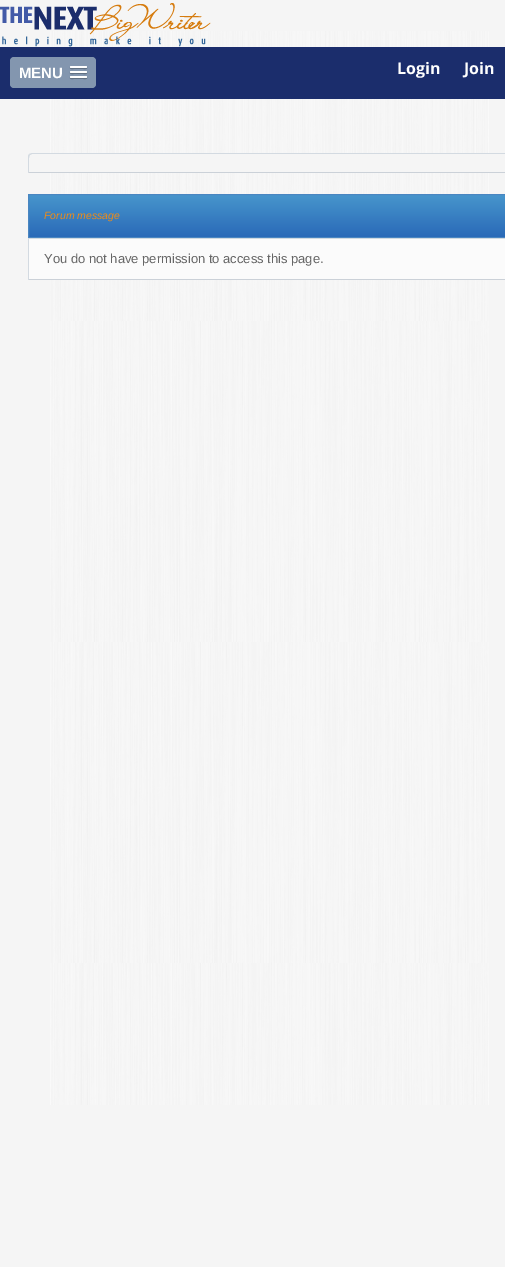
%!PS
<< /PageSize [505 1267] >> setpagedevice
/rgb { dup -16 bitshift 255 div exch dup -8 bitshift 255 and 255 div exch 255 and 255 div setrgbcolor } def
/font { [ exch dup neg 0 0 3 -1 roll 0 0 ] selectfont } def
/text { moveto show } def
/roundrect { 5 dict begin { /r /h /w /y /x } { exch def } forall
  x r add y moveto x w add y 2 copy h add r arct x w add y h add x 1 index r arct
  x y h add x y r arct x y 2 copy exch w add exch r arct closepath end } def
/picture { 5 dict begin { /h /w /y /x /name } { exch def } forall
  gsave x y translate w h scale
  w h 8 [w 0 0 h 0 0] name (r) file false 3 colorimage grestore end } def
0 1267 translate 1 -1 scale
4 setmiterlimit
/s1 { /LiberationSans-Bold 15 font 16#FFFFFF rgb } def
/s2 { /OpenSans-Bold 16 font 16#FFFFFF rgb } def
/s3 { /LiberationSans-Italic 10.5 font 16#EF8C17 rgb } def
/s4 { /LiberationSans-Regular 13 font 16#666666 rgb } def
16#F5F5F5 rgb
0 0 505 1267 rectfill
(pic1.raw) 50 31 439 1074 picture
(pic2.raw) 0 3 211 44 picture
16#1B2D6C rgb
0 47 505 52 rectfill
16#8396AF rgb
10 57 86 31 4 roundrect fill
s1
(MENU) 19 78 text
16#627183 rgb
70 67.5 moveto 69 69.5 73.5 69 73.5 69 curveto 83.5 69 lineto 83.5 69 88 69.5 87 67.5 curveto 86 68.5 80 68 78.5 68 curveto 77 68 71 68.5 70 67.5 curveto closepath fill
16#FFFFFF rgb
70 66 17 2 1 roundrect fill
16#627183 rgb
70 72.5 moveto 69 74.5 73.5 74 73.5 74 curveto 83.5 74 lineto 83.5 74 88 74.5 87 72.5 curveto 86 73.5 80 73 78.5 73 curveto 77 73 71 73.5 70 72.5 curveto closepath fill
16#FFFFFF rgb
70 71 17 2 1 roundrect fill
16#627183 rgb
70 77.5 moveto 69 79.5 73.5 79 73.5 79 curveto 83.5 79 lineto 83.5 79 88 79.5 87 77.5 curveto 86 78.5 80 78 78.5 78 curveto 77 78 71 78.5 70 77.5 curveto closepath fill
16#FFFFFF rgb
70 76 17 2 1 roundrect fill
s2
(Login) 397 74 text
(Join) 464 74 text
16#F5F5F5 rgb
32 153 moveto 505 153 lineto 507 153 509 155 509 157 curveto 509 173 lineto 28 173 lineto 28 157 lineto 28 155 30 153 32 153 curveto closepath fill
16#D3DAE1 rgb
32 153 moveto 29 154 lineto 30 155 lineto 32 154 lineto 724 154 lineto 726 155 lineto 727 154 lineto 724 153 lineto closepath fill
16#CBD1D8 rgb
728 173 moveto 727 172 lineto 29 172 lineto 28 173 lineto closepath fill
16#D3DAE1 rgb
28 173 moveto 29 172 lineto 29 169.5 28 156.5 30 155 curveto 29 154 lineto 28.5 155 28 156 28 157 curveto closepath fill
gsave 29 195 moveto 505 195 lineto 505 237 lineto 29 237 lineto closepath clip newpath
<< /ShadingType 2 /ColorSpace /DeviceRGB /Coords [378 237 378 195] /Extend [true true] /Function << /FunctionType 2 /Domain [0 1] /C0 [0.165 0.416 0.722] /C1 [0.278 0.584 0.8] /N 1 >> >> shfill grestore
16#4A86C1 rgb
28.5 194.5 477 43 rectstroke
s3
(Forum message) 44 219 text
16#FBFBFB rgb
29 239 476 40 rectfill
16#D3DAE1 rgb
28 238 477 1 rectfill
16#CBD1D8 rgb
28 279 477 1 rectfill
16#D3DAE1 rgb
28 238 1 42 rectfill
s4
(You do not have permission to access this page.) 44 263 text
showpage
